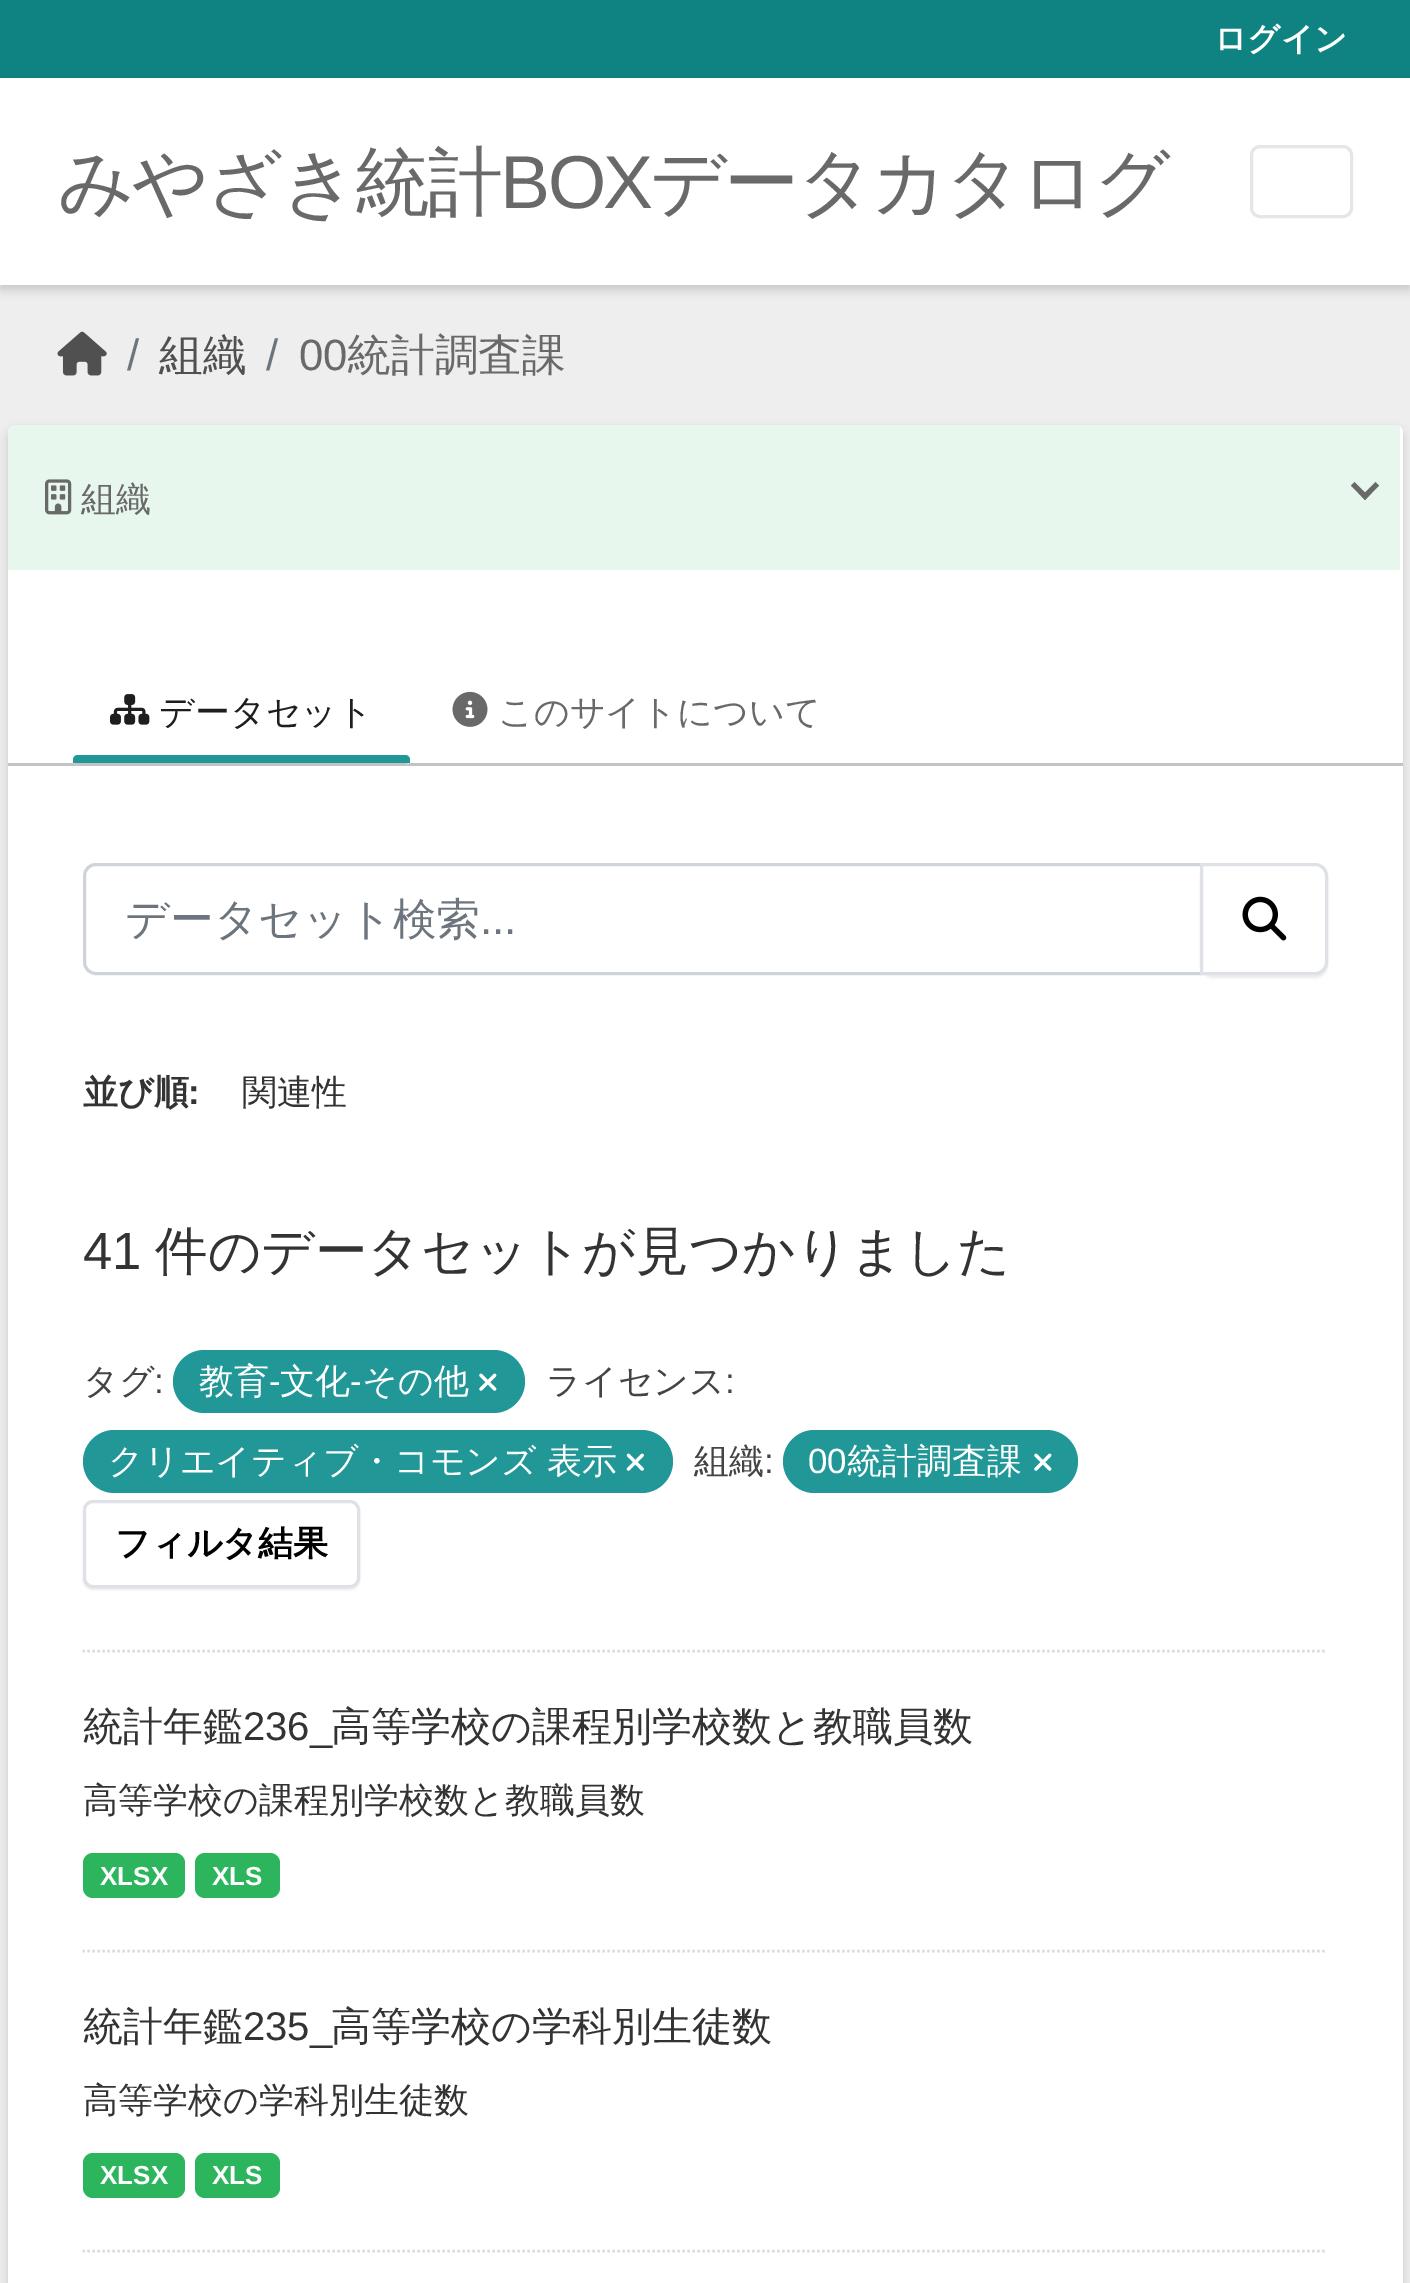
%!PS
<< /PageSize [1410 2283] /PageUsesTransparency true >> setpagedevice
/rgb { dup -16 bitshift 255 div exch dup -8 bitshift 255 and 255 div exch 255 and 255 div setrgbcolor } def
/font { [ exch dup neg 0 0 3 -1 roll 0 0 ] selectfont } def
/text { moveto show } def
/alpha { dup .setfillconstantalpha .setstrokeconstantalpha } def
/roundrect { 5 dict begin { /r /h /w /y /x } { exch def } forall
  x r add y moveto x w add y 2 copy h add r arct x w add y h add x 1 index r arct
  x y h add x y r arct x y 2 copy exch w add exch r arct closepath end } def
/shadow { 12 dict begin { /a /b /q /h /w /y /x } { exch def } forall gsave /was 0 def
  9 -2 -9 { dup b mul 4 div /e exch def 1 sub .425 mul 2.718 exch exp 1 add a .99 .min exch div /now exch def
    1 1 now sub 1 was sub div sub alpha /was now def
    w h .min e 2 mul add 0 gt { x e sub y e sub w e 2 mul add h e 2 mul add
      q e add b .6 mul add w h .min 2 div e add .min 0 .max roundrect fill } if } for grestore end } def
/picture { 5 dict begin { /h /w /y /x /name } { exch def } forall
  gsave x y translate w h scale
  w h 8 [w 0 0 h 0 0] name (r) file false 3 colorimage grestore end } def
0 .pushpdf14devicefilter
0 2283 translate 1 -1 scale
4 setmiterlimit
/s1 { /WenQuanYiZenHei-Bold 32.5 font 16#FFFFFF rgb } def
/s2 { /LiberationSans-Regular 43.75 font 16#6C757D rgb } def
/s3 { /WenQuanYiZenHei-Medium 43.75 font 16#505050 rgb } def
/s4 { /LiberationSans-Regular 43.75 font 16#696969 rgb } def
/s5 { /WenQuanYiZenHei-Medium 43.75 font 16#696969 rgb } def
/s6 { /WenQuanYiZenHei-Medium 35 font 16#696969 rgb } def
/s7 { /WenQuanYiZenHei-Medium 35 font 16#1E1E1E rgb } def
/s8 { /WenQuanYiZenHei-Medium 43.75 font 16#6C757D rgb } def
/s9 { /WenQuanYiZenHei-Bold 35 font 16#333333 rgb } def
/s10 { /LiberationSans-Bold 35 font 16#333333 rgb } def
/s11 { /WenQuanYiZenHei-Medium 35 font 16#333333 rgb } def
/s12 { /LiberationSans-Regular 52.5 font 16#333333 rgb } def
/s13 { /WenQuanYiZenHei-Medium 52.5 font 16#333333 rgb } def
/s14 { /WenQuanYiZenHei-Medium 35 font 16#444444 rgb } def
/s15 { /LiberationSans-Regular 35 font 16#444444 rgb } def
/s16 { /WenQuanYiZenHei-Medium 35 font 16#FFFFFF rgb } def
/s17 { /LiberationSans-Regular 35 font 16#FFFFFF rgb } def
/s18 { /WenQuanYiZenHei-Bold 35 font 16#000000 rgb } def
/s19 { /WenQuanYiZenHei-Medium 40 font 16#333333 rgb } def
/s20 { /LiberationSans-Regular 40 font 16#333333 rgb } def
/s21 { /LiberationSans-Bold 26 font 16#FFFFFF rgb } def
16#0F8382 rgb
0 0 1410 2283 rectfill
s1
(ログイン) 1214 50 text
16#EEEEEE rgb
0 285 1410 1998 rectfill
16#000000 rgb
0 83 1410 207 0 5 0.16 shadow
16#FFFFFF rgb
0 78 1410 207 rectfill
/WenQuanYiZenHei-Medium 75 font
16#696969 rgb
58 208 moveto -2.5 0 (みやざき統計) ashow
/LiberationSans-Regular 75 font
500 208 moveto -2.5 0 (BOX) ashow
/WenQuanYiZenHei-Medium 75 font
650 208 moveto -2.5 0 (データカタログ) ashow
16#E6E6E6 rgb
3 setlinewidth
1251.5 146.5 100 70 8.5 roundrect stroke
(pic1.raw) 57 331 50 45 picture
s2
(/) 127 370 text
s3
(組織) 159 370 text
s2
(/) 266 370 text
s4
(00) 299 370 text
s5
(統計調査課) 347 370 text
16#000000 rgb
8 430 1395 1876 8 5 0.16 shadow
16#FFFFFF rgb
8 425 1395 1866 8 roundrect fill
gsave
8 425 1395 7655 8 roundrect clip newpath
16#E7F7EE rgb
16 425 moveto 1400 425 lineto 1400 570 lineto 8 570 lineto 8 433 lineto 8 428.5 11.5 425 16 425 curveto closepath fill
grestore
(pic2.raw) 45 479 27 36 picture
s6
(組織) 81 511 text
1375.5 482 moveto 1379 485.5 lineto 1365 500 lineto 1361.5 496 lineto closepath fill
1354.5 482 moveto 1368.5 496 lineto 1365 500 lineto 1351 485.5 lineto closepath fill
16#C3C3C3 rgb
8 763 1395 3 rectfill
16#FFFFFF rgb
70 658 343 107 10 roundrect fill
16#C3C3C3 rgb
2.5 setlinewidth
408.5 761 moveto 407 763 405 764 402.5 764 curveto 80 764 lineto 77.5 764 75.5 763 74 761 curveto stroke
(pic3.raw) 110 694 40 31 picture
s7
(データセット) 159 724 text
16#219897 rgb
78 755 moveto 405 755 lineto 408 755 410 757 410 760 curveto 410 763 lineto 73 763 lineto 73 760 lineto 73 757 75 755 78 755 curveto closepath fill
(pic4.raw) 452 691 36 36 picture
s6
(このサイトについて) 498 724 text
16#DDDDDD rgb
[2.5 2.5] 0 setdash
82.5 1651 moveto 1327.5 1651 lineto stroke
16#CED4DA rgb
3 setlinewidth
[] 0 setdash
96 864.5 moveto 1201.5 864.5 lineto 1201.5 973.5 lineto 96 973.5 lineto 89.5 973.5 84.5 968.5 84.5 962 curveto 84.5 876 lineto 84.5 869.5 89.5 864.5 96 864.5 curveto closepath stroke
s8
(データセット検索) 125 934 text
s2
(...) 480 934 text
16#000000 rgb
1200 865 128 113 13 1 0.07 shadow
16#FFFFFF rgb
1201.5 864.5 moveto 1315 864.5 lineto 1321.5 864.5 1326.5 869.5 1326.5 876 curveto 1326.5 962 lineto 1326.5 968.5 1321.5 973.5 1315 973.5 curveto 1201.5 973.5 lineto closepath gsave fill grestore
16#DEE2E6 rgb
stroke
(pic5.raw) 1242 896 45 45 picture
s9
(並び順) 83 1104 text
s10
(:) 188 1104 text
s11
(関連性) 242 1104 text
s12
(41) 83 1269 text
s13
(件のデータセットが見つかりました) 155 1269 text
s14
(タグ) 83 1393 text
s15
(:) 154 1393 text
16#219897 rgb
173 1350 352 63 31.5 roundrect fill
s16
(教育) 199 1393 text
s17
(-) 269 1393 text
s16
(文化) 280 1393 text
s17
(-) 350 1393 text
s16
(その他) 362 1393 text
(pic6.raw) 479 1373 18 18 picture
s14
(ライセンス) 546 1393 text
s15
(:) 725 1393 text
16#219897 rgb
83 1430 590 63 31.5 roundrect fill
/WenQuanYiZenHei-Medium 35 font
16#FFFFFF rgb
108 1473 moveto -1 0 32 (クリエイティブ・コモンズ 表示) widthshow
(pic7.raw) 626 1453 18 18 picture
s14
(組織) 694 1473 text
s15
(:) 764 1473 text
16#219897 rgb
783 1430 295 63 31.5 roundrect fill
s17
(00) 808 1473 text
s16
(統計調査課) 847 1473 text
(pic6.raw) 1034 1453 18 18 picture
16#000000 rgb
83 1503 277 87 10 1 0.07 shadow
16#FFFFFF rgb
84.5 1501.5 274 85 8.5 roundrect gsave fill grestore
16#DEE2E6 rgb
stroke
s18
(フィルタ結果) 115 1555 text
16#DDDDDD rgb
2.5 setlinewidth
[2.5 2.5] 0 setdash
82.5 1951 moveto 1327.5 1951 lineto stroke
s19
(統計年鑑) 83 1740 text
s20
(236_) 243 1740 text
s19
(高等学校の課程別学校数と教職員数) 331 1740 text
s11
(高等学校の課程別学校数と教職員数) 83 1812 text
16#2DB55D rgb
83 1853 102 45 10 roundrect fill
s21
(XLSX) 100 1885 text
16#2DB55D rgb
195 1853 85 45 10 roundrect fill
s21
(XLS) 212 1885 text
16#DDDDDD rgb
82.5 2251 moveto 1327.5 2251 lineto stroke
s19
(統計年鑑) 83 2040 text
s20
(235_) 243 2040 text
s19
(高等学校の学科別生徒数) 331 2040 text
s11
(高等学校の学科別生徒数) 83 2112 text
16#2DB55D rgb
83 2153 102 45 10 roundrect fill
s21
(XLSX) 100 2184 text
16#2DB55D rgb
195 2153 85 45 10 roundrect fill
s21
(XLS) 212 2184 text
.poppdf14devicefilter showpage
